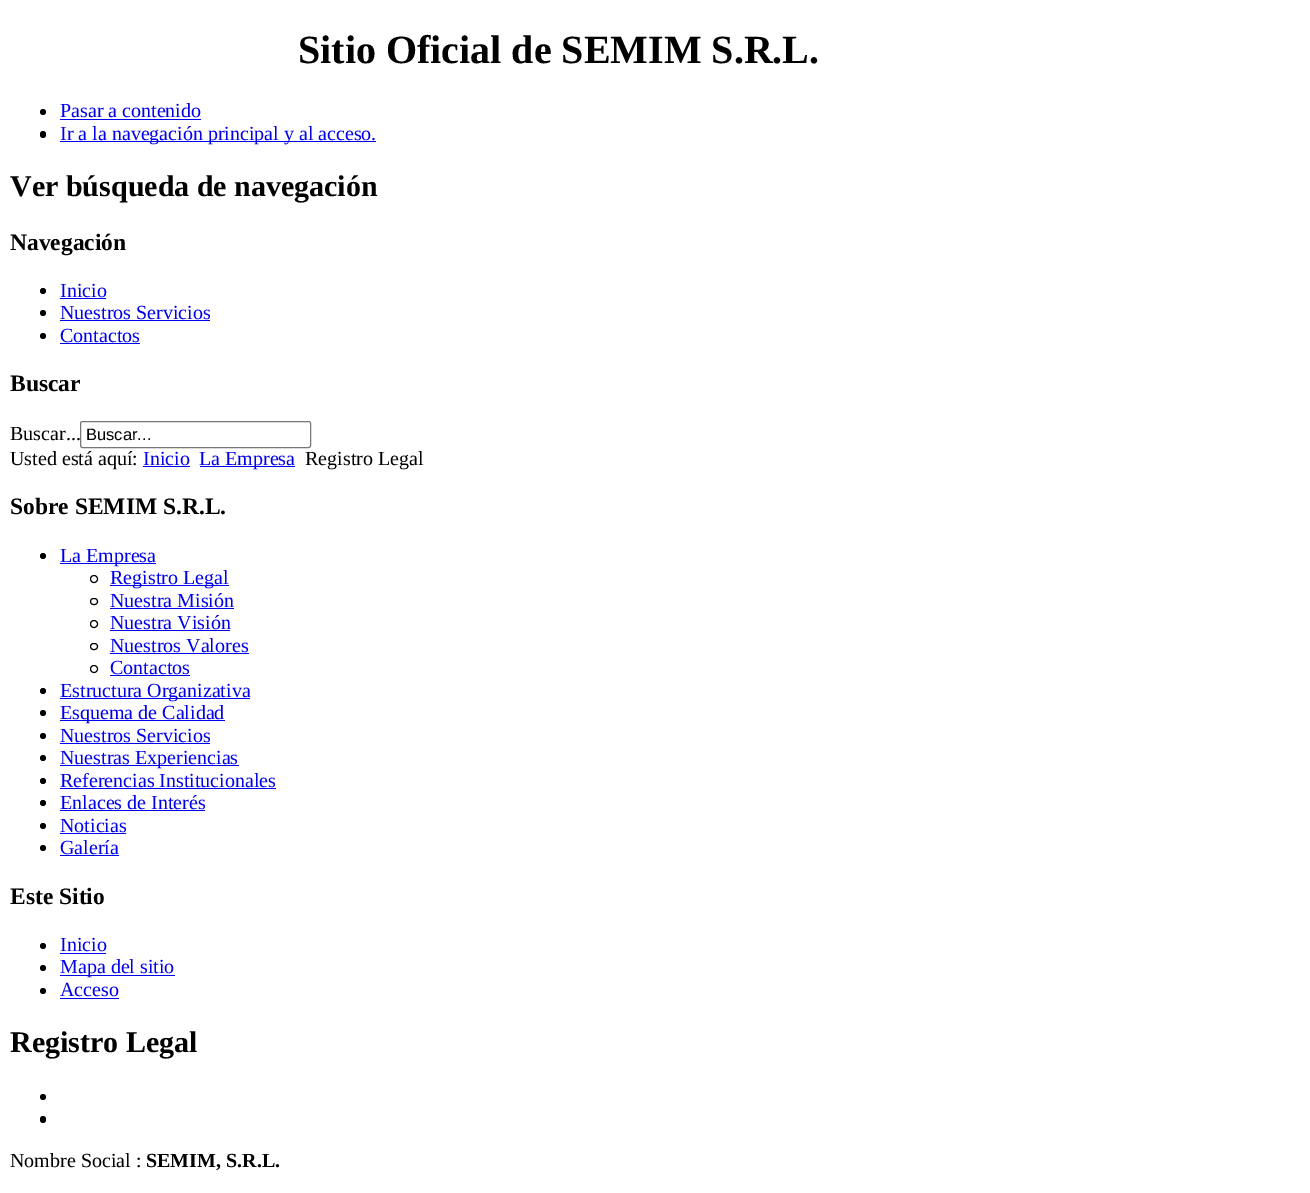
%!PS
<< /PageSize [1310 1193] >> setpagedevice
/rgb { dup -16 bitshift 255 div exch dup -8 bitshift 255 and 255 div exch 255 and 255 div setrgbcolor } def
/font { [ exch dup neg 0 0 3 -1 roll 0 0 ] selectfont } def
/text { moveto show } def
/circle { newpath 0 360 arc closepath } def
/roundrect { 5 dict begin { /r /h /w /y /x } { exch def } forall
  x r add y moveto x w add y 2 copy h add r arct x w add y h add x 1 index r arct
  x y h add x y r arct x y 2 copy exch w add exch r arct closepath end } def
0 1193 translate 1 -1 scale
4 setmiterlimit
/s1 { /LiberationSerif-Bold 40 font 16#000000 rgb } def
/s2 { /LiberationSerif-Regular 20 font 16#0000EE rgb } def
/s3 { /LiberationSerif-Bold 30 font 16#000000 rgb } def
/s4 { /LiberationSerif-Bold 23.5 font 16#000000 rgb } def
/s5 { /LiberationSerif-Regular 20 font 16#000000 rgb } def
/s6 { /LiberationSans-Regular 16.5 font 16#000000 rgb } def
/s7 { /LiberationSerif-Bold 20 font 16#000000 rgb } def
16#FFFFFF rgb
0 0 1310 1193 rectfill
s1
(Sitio Oficial de SEMIM S.R.L.) 298 63 text
43 112 3 circle fill
s2
(Pasar a contenido) 60 117 text
60 119 141 1 rectfill
16#000000 rgb
40 131 6 7 3 roundrect fill
16#0000EE rgb
60 141 316 1 rectfill
(Ir a la navegación principal y al acceso.) 60 140 text
s3
(Ver búsqueda de navegación) 10 196 text
s4
(Navegación) 10 250 text
43 291 3 circle fill
s2
(Inicio) 60 297 text
60 298 46 1 rectfill
16#000000 rgb
43 313 3 circle fill
s2
(Nuestros Servicios) 60 319 text
60 320 150 1 rectfill
16#000000 rgb
43 336 3 circle fill
s2
(Contactos) 60 342 text
60 343 80 1 rectfill
s4
(Buscar) 10 391 text
s5
(Buscar...) 10 440 text
16#767676 rgb
80.5 421.5 230 26 2 roundrect stroke
s6
(Buscar...) 86 440 text
s5
(Usted está aquí:) 10 465 text
s2
(Inicio) 143 465 text
143 466 47 1 rectfill
200 466 95 1 rectfill
(La Empresa) 199 465 text
s5
(Registro Legal) 305 465 text
s4
(Sobre SEMIM S.R.L.) 10 514 text
43 556 3 circle fill
16#0000EE rgb
60 563 96 1 rectfill
s2
(La Empresa) 60 562 text
16#000000 rgb
94 579 3.5 circle stroke
16#0000EE rgb
110 585 119 1 rectfill
(Registro Legal) 110 584 text
16#000000 rgb
90.5 598.5 7 6 3 roundrect stroke
s2
(Nuestra Misión) 110 607 text
110 608 124 1 rectfill
16#000000 rgb
94 624 3.5 circle stroke
s2
(Nuestra Visión) 110 629 text
110 630 120 1 rectfill
16#000000 rgb
90.5 643.5 7 6 3 roundrect stroke
s2
(Nuestros Valores) 110 652 text
110 653 139 1 rectfill
16#000000 rgb
94 669 3.5 circle stroke
s2
(Contactos) 110 674 text
110 675 80 1 rectfill
16#000000 rgb
43 691 3 circle fill
16#0000EE rgb
60 698 190 1 rectfill
(Estructura Organizativa) 60 697 text
16#000000 rgb
43 713 3 circle fill
16#0000EE rgb
60 720 165 1 rectfill
(Esquema de Calidad) 60 719 text
16#000000 rgb
43 736 3 circle fill
s2
(Nuestros Servicios) 60 742 text
60 743 150 1 rectfill
16#000000 rgb
43 758 3 circle fill
16#0000EE rgb
60 765 179 1 rectfill
(Nuestras Experiencias) 60 764 text
16#000000 rgb
43 781 3 circle fill
s2
(Referencias Institucionales) 60 787 text
60 788 216 1 rectfill
16#000000 rgb
43 803 3 circle fill
s2
(Enlaces de Interés) 60 809 text
60 810 145 1 rectfill
16#000000 rgb
43 826 3 circle fill
s2
(Noticias) 60 832 text
60 833 66 1 rectfill
16#000000 rgb
43 848 3 circle fill
s2
(Galería) 60 854 text
60 855 59 1 rectfill
s4
(Este Sitio) 10 904 text
43 946 3 circle fill
s2
(Inicio) 60 951 text
60 953 46 1 rectfill
16#000000 rgb
43 968 3 circle fill
16#0000EE rgb
60 975 115 1 rectfill
(Mapa del sitio) 60 973 text
16#000000 rgb
43 991 3 circle fill
s2
(Acceso) 60 996 text
60 998 59 1 rectfill
s3
(Registro Legal) 10 1052 text
43 1097 3 circle fill
40 1116 6 7 3 roundrect fill
s5
(Nombre Social :) 10 1167 text
s7
(SEMIM, S.R.L.) 146 1167 text
showpage
